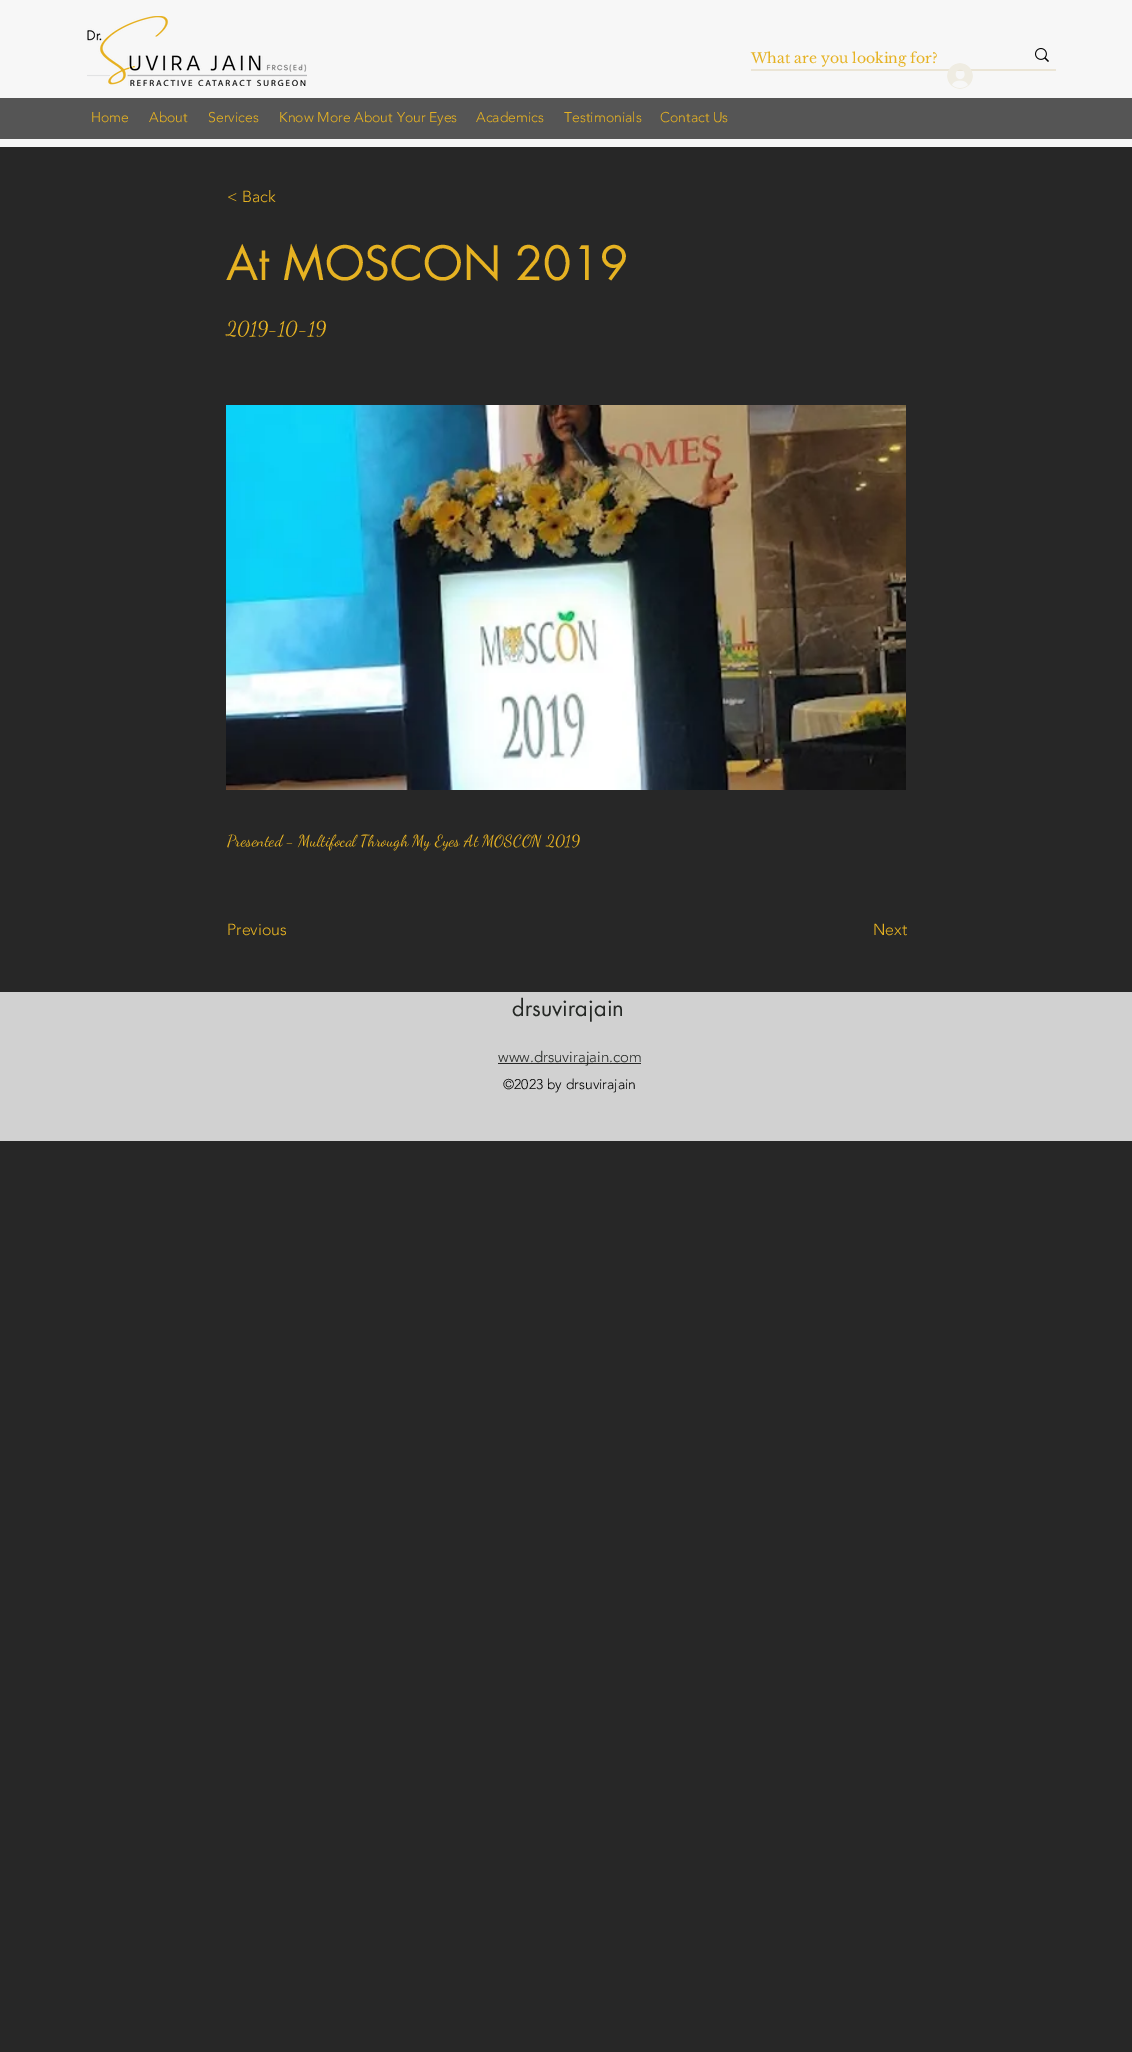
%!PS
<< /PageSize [1132 2052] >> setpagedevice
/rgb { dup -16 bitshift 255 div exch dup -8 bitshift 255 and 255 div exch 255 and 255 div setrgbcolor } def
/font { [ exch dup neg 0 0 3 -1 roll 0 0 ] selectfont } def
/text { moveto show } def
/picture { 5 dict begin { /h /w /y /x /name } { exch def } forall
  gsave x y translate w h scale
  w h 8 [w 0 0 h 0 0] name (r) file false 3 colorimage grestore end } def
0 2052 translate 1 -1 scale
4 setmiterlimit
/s1 { /LibreBaskerville-Regular 14 font 16#E6B222 rgb } def
/s2 { /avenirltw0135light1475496-Light 14 font 16#E6B222 rgb } def
/s3 { /avenirltw0135light1475496-Light 16 font 16#E6B222 rgb } def
/s4 { /futura-Regular 46 font 16#E6B222 rgb } def
/s5 { /DancingScript-Regular 20 font 16#E6B222 rgb } def
/s6 { /DancingScript-Regular 16 font 16#E6B222 rgb } def
/s7 { /futura-Regular 22 font 16#252825 rgb } def
/s8 { /avenirltw0135light1475496-Light 15 font 16#252825 rgb } def
/s9 { /avenirltw0135light1475496-Light 14 font 16#000000 rgb } def
16#272727 rgb
0 0 1132 2052 rectfill
16#F7F7F7 rgb
0 0 1132 147 rectfill
(pic1.raw) 87 16 220 70 picture
16#EBE5D6 rgb
751 69 305 2 rectfill
s1
(What are you looking for?) 751 63 text
(pic2.raw) 1035 48 14 14 picture
(pic3.raw) 947 63 26 26 picture
16#555555 rgb
0 98 1132 41 rectfill
s2
(Home) 91 122 text
(About) 149 122 text
(Services) 208 122 text
(Know More About Your Eyes) 279 122 text
(Academics) 476 122 text
(Testimonials) 564 122 text
(Contact Us) 660 122 text
s3
(< Back) 227 202 text
s4
(At MOSCON 2019) 226 280 text
s5
(2019-10-19) 226 335 text
(pic4.raw) 226 405 680 385 picture
s6
(Presented - Multifocal Through My Eyes At MOSCON 2019) 227 846 text
s3
(Previous) 227 935 text
(Next) 873 935 text
16#D1D1D1 rgb
0 992 1132 149 rectfill
s7
(drsuvirajain) 512 1016 text
16#272727 rgb
498 1063 143 1 rectfill
s8
(www.drsuvirajain.com) 498 1062 text
s9
(©2023 by drsuvirajain) 503 1089 text
showpage
